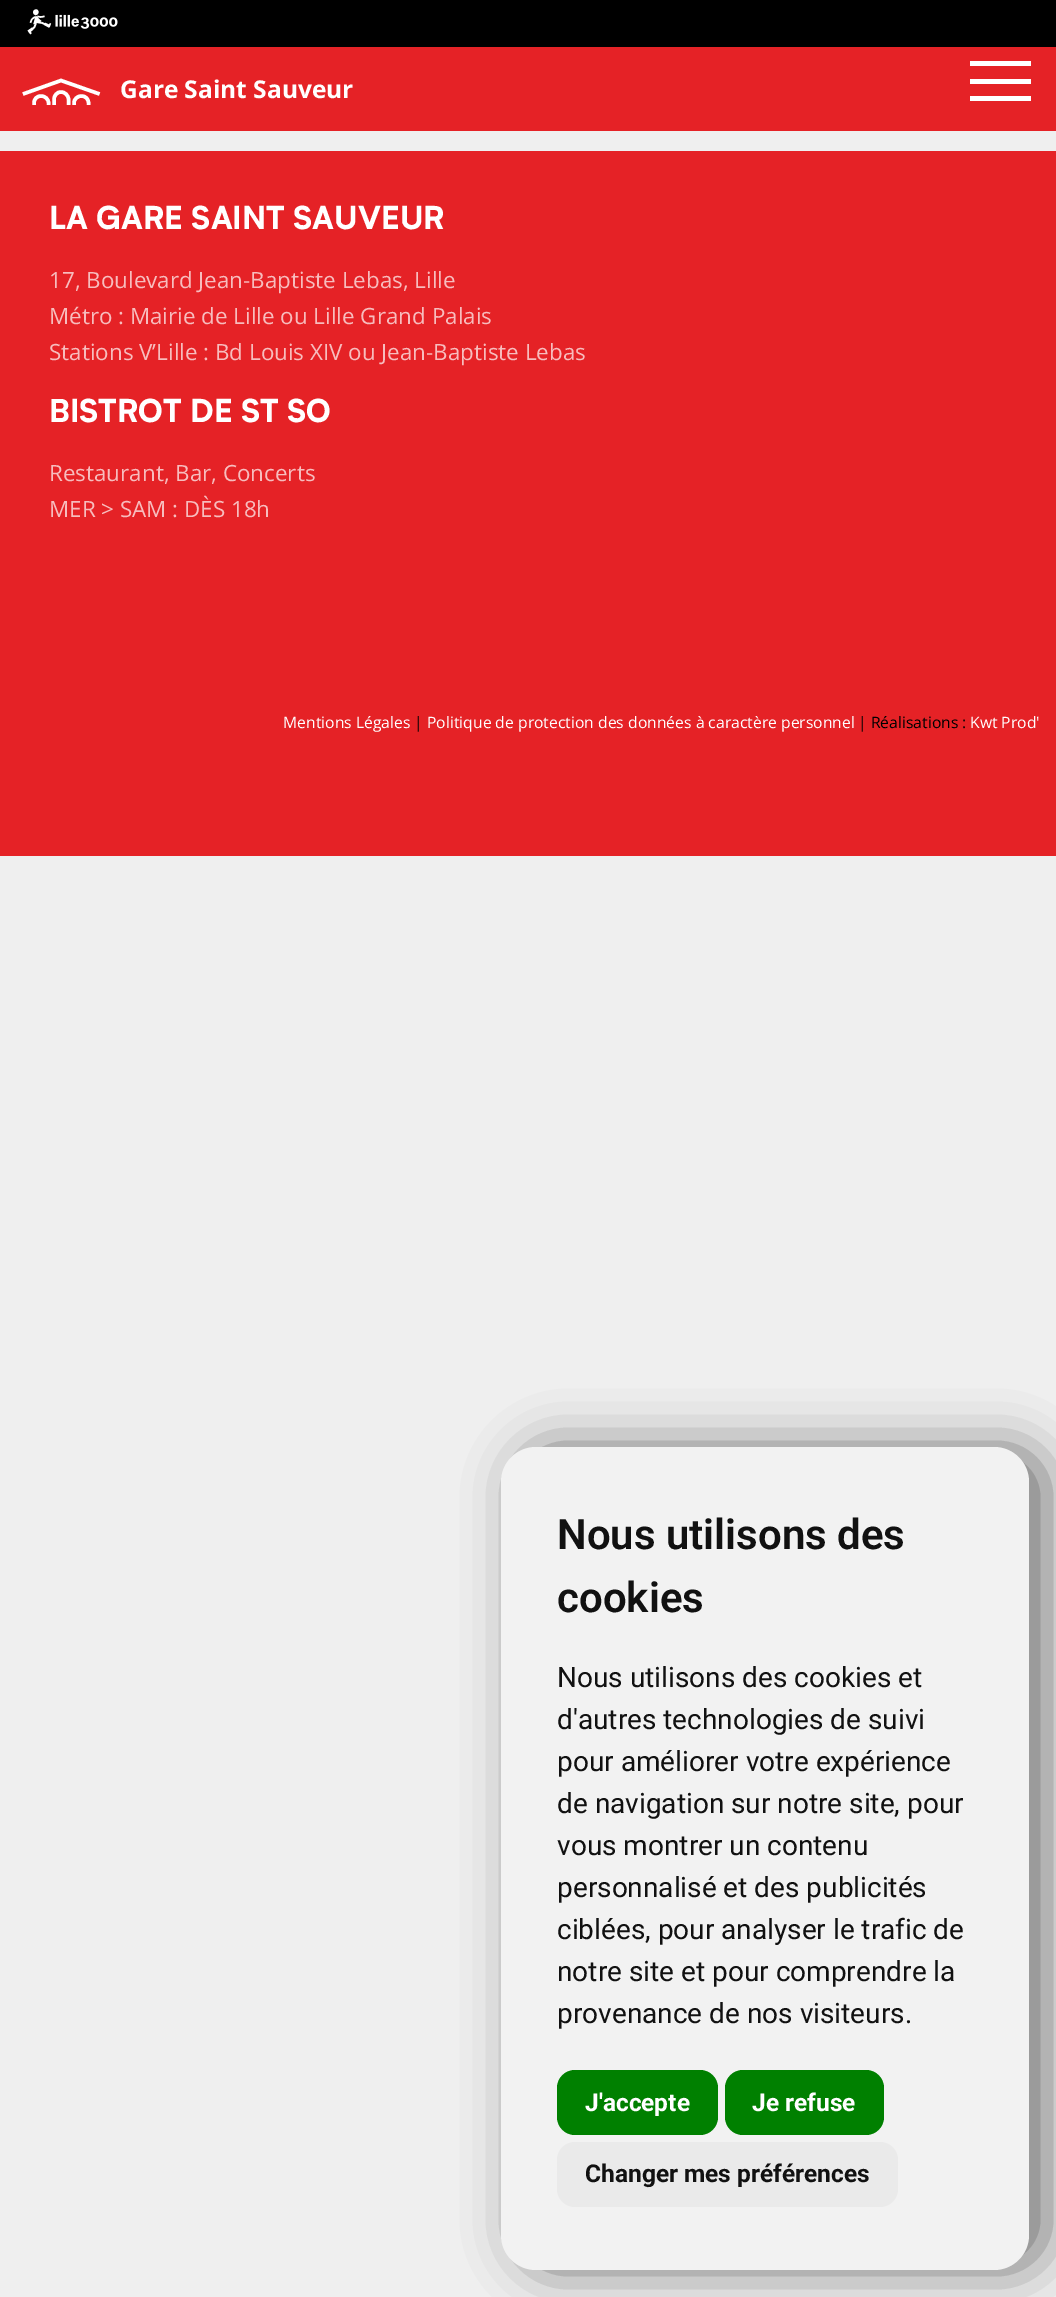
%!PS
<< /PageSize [1056 2297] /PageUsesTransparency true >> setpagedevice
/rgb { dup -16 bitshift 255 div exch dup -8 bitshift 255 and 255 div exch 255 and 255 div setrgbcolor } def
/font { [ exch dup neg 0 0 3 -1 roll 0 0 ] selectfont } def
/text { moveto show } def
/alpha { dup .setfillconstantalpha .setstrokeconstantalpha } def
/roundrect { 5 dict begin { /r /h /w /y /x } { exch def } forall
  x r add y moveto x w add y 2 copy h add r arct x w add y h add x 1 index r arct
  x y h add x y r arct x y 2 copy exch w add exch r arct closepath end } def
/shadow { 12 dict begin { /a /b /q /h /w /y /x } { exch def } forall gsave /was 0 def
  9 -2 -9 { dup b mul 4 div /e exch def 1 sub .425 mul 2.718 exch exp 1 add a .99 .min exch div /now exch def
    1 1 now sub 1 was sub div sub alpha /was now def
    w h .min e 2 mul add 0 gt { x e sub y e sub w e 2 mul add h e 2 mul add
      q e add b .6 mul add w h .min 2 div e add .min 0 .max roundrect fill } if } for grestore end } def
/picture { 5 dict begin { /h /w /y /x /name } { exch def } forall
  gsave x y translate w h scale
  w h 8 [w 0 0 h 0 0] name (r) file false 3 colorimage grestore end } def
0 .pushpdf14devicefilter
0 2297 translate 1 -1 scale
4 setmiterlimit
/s1 { /OpenSans-Bold 24.5 font 16#FFFFFF rgb } def
/s2 { /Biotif-ExtraBold 31.4 font 16#FFFFFF rgb } def
/s3 { /OpenSans-Regular 22.4 font 16#F7BDBE rgb } def
/s4 { /OpenSans-Regular 15.7 font 16#FFFFFF rgb } def
/s5 { /OpenSans-Regular 15.7 font 16#000000 rgb } def
/s6 { /Roboto-SemiBold 42 font 16#111111 rgb } def
/s7 { /Roboto-Regular 28 font 16#111111 rgb } def
/s8 { /Roboto-Bold 24.5 font 16#FFFFFF rgb } def
/s9 { /Roboto-Bold 24.5 font 16#111111 rgb } def
16#EFEFEF rgb
0 0 1056 2297 rectfill
16#E52226 rgb
0 47 1056 84 rectfill
16#000000 rgb
0 0 1056 47 rectfill
(pic1.raw) 27 9 91 26 picture
16#FFFFFF rgb
3.5 setlinewidth
23 94 moveto 61 80.5 lineto 99.5 94 lineto stroke
54 105 moveto 54 99.5 lineto 54 95.5 57 92 61 92 curveto 65 92 68.5 95.5 68.5 99.5 curveto 68.5 105 lineto 74 105 moveto 74 103 lineto 74 99 77.5 96 81.5 96 curveto 85.5 96 88.5 99 88.5 103 curveto 88.5 105 lineto 34 105 moveto 34 103 lineto 34 99 37 96 41 96 curveto 45 96 48.5 99 48.5 103 curveto 48.5 105 lineto stroke
s1
(Gare Saint Sauveur) 120 98 text
970 61 61 5 rectfill
970 79 61 5 rectfill
970 96 61 5 rectfill
16#E52226 rgb
0 151 1056 705 rectfill
s2
(LA GARE SAINT SAUVEUR) 49 229 text
s3
(17, Boulevard Jean-Baptiste Lebas, Lille) 49 288 text
(Métro : Mairie de Lille ou Lille Grand Palais) 49 324 text
(Stations V’Lille : Bd Louis XIV ou Jean-Baptiste Lebas) 49 360 text
s2
(BISTROT DE ST SO) 49 422 text
s3
(Restaurant, Bar, Concerts) 49 481 text
(MER > SAM : DÈS 18h) 49 517 text
s4
(Mentions Légales) 283 728 text
s5
(|) 414 728 text
s4
(Politique de protection des données à caractère personnel) 427 728 text
s5
(| Réalisations :) 858 728 text
s4
(Kwt Prod') 970 728 text
16#000000 rgb
518 1447 529 823 35 26 0.5 shadow
16#F2F2F2 rgb
501 1447 528 823 35 roundrect fill
s6
(Nous utilisons des) 557 1549 text
(cookies) 557 1612 text
s7
(Nous utilisons des cookies et) 557 1687 text
(d'autres technologies de suivi) 557 1729 text
(pour améliorer votre expérience) 557 1771 text
(de navigation sur notre site, pour) 557 1813 text
(vous montrer un contenu) 557 1855 text
(personnalisé et des publicités) 557 1897 text
(ciblées, pour analyser le trafic de) 557 1939 text
(notre site et pour comprendre la) 557 1981 text
(provenance de nos visiteurs.) 557 2023 text
16#008000 rgb
557 2070 161 65 18 roundrect fill
s8
(J'accepte) 585 2111 text
16#008000 rgb
725 2070 159 65 18 roundrect fill
s8
(Je refuse) 752 2111 text
16#EAEAEA rgb
557 2142 341 65 18 roundrect fill
s9
(Changer mes préférences) 585 2182 text
.poppdf14devicefilter showpage
